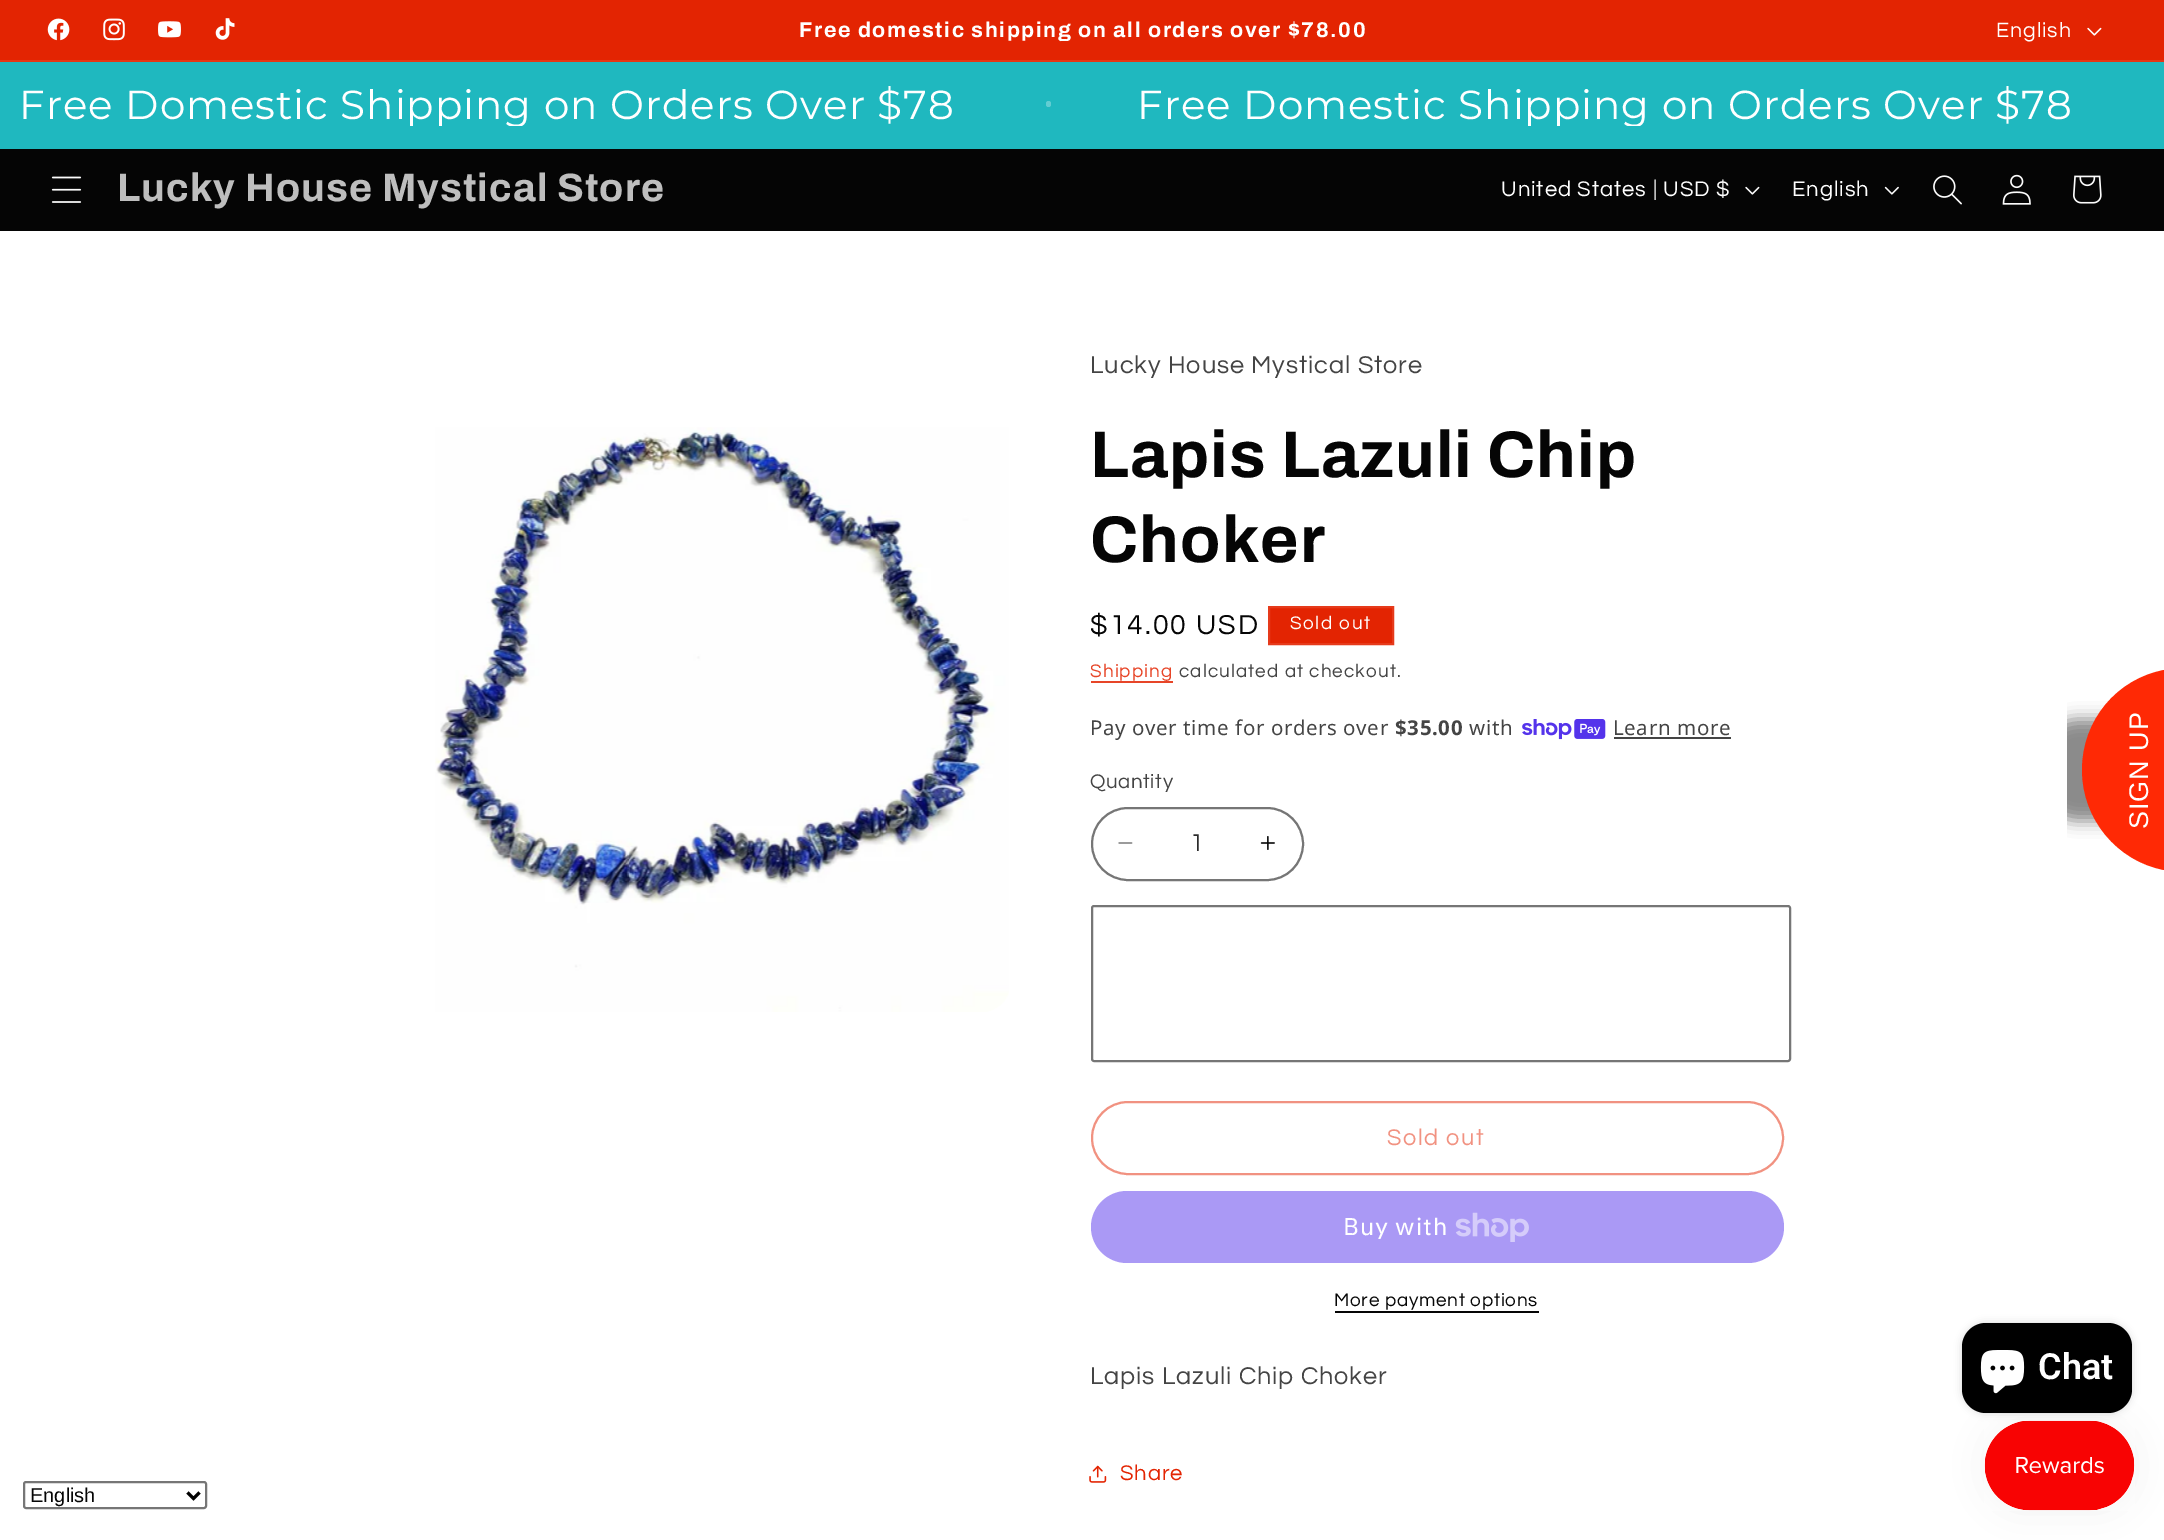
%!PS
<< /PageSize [2164 1540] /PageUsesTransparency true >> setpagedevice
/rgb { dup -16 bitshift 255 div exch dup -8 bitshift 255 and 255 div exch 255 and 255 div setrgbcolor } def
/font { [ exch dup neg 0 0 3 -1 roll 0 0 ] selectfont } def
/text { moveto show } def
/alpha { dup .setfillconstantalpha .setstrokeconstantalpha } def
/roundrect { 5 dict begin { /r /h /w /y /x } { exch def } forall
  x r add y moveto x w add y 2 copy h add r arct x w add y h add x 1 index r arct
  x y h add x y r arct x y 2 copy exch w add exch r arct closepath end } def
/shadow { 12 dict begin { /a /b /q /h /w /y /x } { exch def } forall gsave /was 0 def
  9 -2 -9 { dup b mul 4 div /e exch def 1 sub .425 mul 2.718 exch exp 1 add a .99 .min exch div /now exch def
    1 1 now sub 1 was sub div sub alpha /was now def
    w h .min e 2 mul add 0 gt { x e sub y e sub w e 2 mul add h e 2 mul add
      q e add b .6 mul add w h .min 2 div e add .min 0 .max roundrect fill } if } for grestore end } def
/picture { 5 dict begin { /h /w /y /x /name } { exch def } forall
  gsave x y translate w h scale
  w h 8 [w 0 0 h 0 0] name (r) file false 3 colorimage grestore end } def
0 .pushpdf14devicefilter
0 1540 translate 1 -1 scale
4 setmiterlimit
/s1 { /Questrial-Regular 25.25 font 16#2B2B2B rgb } def
/s2 { /Roboto-SemiBold 36 font 16#FFFFFF rgb } def
/s3 { /LiberationSans-Regular 20 font 16#050505 rgb } def
16#FFFFFF rgb
0 0 2164 1540 rectfill
16#E32402 rgb
0 0 2164 60 rectfill
16#E53616 rgb
0 60 2164 2 rectfill
(pic1.raw) 47 18 23 23 picture
(pic2.raw) 103 18 22 23 picture
(pic3.raw) 158 21 23 17 picture
(pic4.raw) 215 18 20 22 picture
/Archivo-Bold 21.45 font
16#FFFFFF rgb
799 37 moveto 1.6 0 (Free domestic shipping on all orders over $78.00) ashow
/Questrial-Regular 21.45 font
1996 37 moveto 0.95 0 (English) ashow
(pic5.raw) 2087 27 15 9 picture
16#1FB8BF rgb
0 62 2164 87 rectfill
gsave
20 86 2125 40 rectclip
/Montserrat-Regular 40.5 font
16#FFFFFF rgb
19 119 moveto 0.95 0 (Free Domestic Shipping on Orders Over $78) ashow
grestore
16#62CDD2 rgb
1046 101 5 6 2.5 roundrect fill
gsave
20 86 2125 40 rectclip
/Montserrat-Regular 40.5 font
16#FFFFFF rgb
1137 119 moveto 0.95 0 (Free Domestic Shipping on Orders Over $78) ashow
grestore
16#050505 rgb
0 149 2164 82 rectfill
(pic6.raw) 51 176 31 27 picture
/Archivo-Bold 39.6 font
16#BEBEBE rgb
117 201 moveto 1 0 (Lucky House Mystical Store) ashow
/Questrial-Regular 22 font
16#FFFFFF rgb
1501 196 moveto 0.95 0 (United States | USD $) ashow
(pic7.raw) 1745 186 15 9 picture
1792 196 moveto 0.95 0 (English) ashow
(pic8.raw) 1884 186 15 9 picture
(pic9.raw) 1933 175 29 30 picture
(pic10.raw) 2002 174 29 31 picture
(pic11.raw) 2073 175 29 29 picture
(pic12.raw) 435 427 574 585 picture
/Questrial-Regular 25.25 font
16#444444 rgb
1090 373 moveto 0.95 0 (Lucky House Mystical Store) ashow
/Archivo-Bold 66 font
16#050505 rgb
1090 477 moveto 1 0 (Lapis Lazuli Chip) ashow
1090 562 moveto 1 0 (Choker) ashow
/Questrial-Regular 28.5 font
1090 634 moveto 2 0 ($14.00 USD) ashow
16#E32402 rgb
1269 607 moveto 1393 607 lineto 1393 644 lineto 1269 644 lineto closepath gsave fill grestore
16#E63A1B rgb
2 setlinewidth
stroke
/Questrial-Regular 18.9 font
16#FFFFFF rgb
1290 629 moveto 1.6 0 (Sold out) ashow
16#E74528 rgb
1090 677 moveto 1.1 0 (Shipping) ashow
1091 681 82 2 rectfill
16#444444 rgb
1179 677 moveto 1.1 0 (calculated at checkout.) ashow
/NotoSans-Regular 20.5 font
1090 735 moveto 0.6 0 (Pay over time for orders over) ashow
/NotoSans-Bold 20.5 font
1395 735 moveto 0.6 0 ($35.00) ashow
/NotoSans-Regular 20.5 font
1469 735 moveto 0.6 0 (with) ashow
(pic13.raw) 1522 719 84 21 picture
1613 735 moveto 0.6 0 (Learn more) ashow
1614 737 117 2 rectfill
/Questrial-Regular 20.5 font
1090 788 moveto 0.6 0 (Quantity) ashow
(pic14.raw) 1118 842 15 2 picture
(pic15.raw) 1260 836 15 14 picture
16#767676 rgb
1092 808 211 72 36 roundrect stroke
s1
(1) 1190 851 text
16#767676 rgb
1092 906 698 155 2 roundrect stroke
16#F19281 rgb
1092 1102 691 72 36 roundrect stroke
/Questrial-Regular 23.5 font
1387 1145 moveto 1.6 0 (Sold out) ashow
16#AA99F5 rgb
1091 1191 693 72 36 roundrect fill
/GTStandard-Regular 24 font
16#FFFFFF rgb
1343 1235 moveto 0.95 0 (Buy with) ashow
(pic16.raw) 1455 1212 74 30 picture
/Questrial-Regular 18.9 font
16#050505 rgb
1334 1306 moveto 0.75 0 (More payment options) ashow
1335 1311 204 2 rectfill
/Questrial-Regular 25.25 font
16#444444 rgb
1090 1384 moveto 0.95 0 (Lapis Lazuli Chip Choker) ashow
(pic17.raw) 1089 1465 18 18 picture
/Questrial-Regular 22 font
16#E32402 rgb
1120 1480 moveto 0.95 0 (Share) ashow
gsave
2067 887 moveto 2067 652.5 lineto 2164.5 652.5 lineto 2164.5 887 lineto closepath clip newpath
16#888888 rgb
2031 719 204 102 102 8 1 shadow
grestore
16#FF2905 rgb
2082 770 moveto 2082 819 2117 861 2164 870 curveto 2164 670 lineto 2117 679 2082 720 2082 770 curveto closepath fill
/LiberationSans-Regular 27 font
16#FFFFFF rgb
gsave 2148 829 translate -90 rotate 0 0 moveto 0.95 0 (SIGN UP) ashow grestore
16#000000 rgb
1962 1323 170 90 24 4 0.15 shadow
1962 1323 170 90 24 roundrect fill
(pic18.raw) 1980 1350 45 44 picture
s2
(Chat) 2038 1379 text
16#767676 rgb
24 1482 182 26 2 roundrect stroke
16#000000 rgb
3 setlinewidth
187.5 1492.5 moveto 193.5 1498.5 lineto 199.5 1492.5 lineto stroke
s3
(English) 30 1502 text
16#000000 rgb
1985 1421 150 90 45 19 0.05 shadow
(pic19.raw) 1984 1420 151 91 picture
.poppdf14devicefilter showpage
